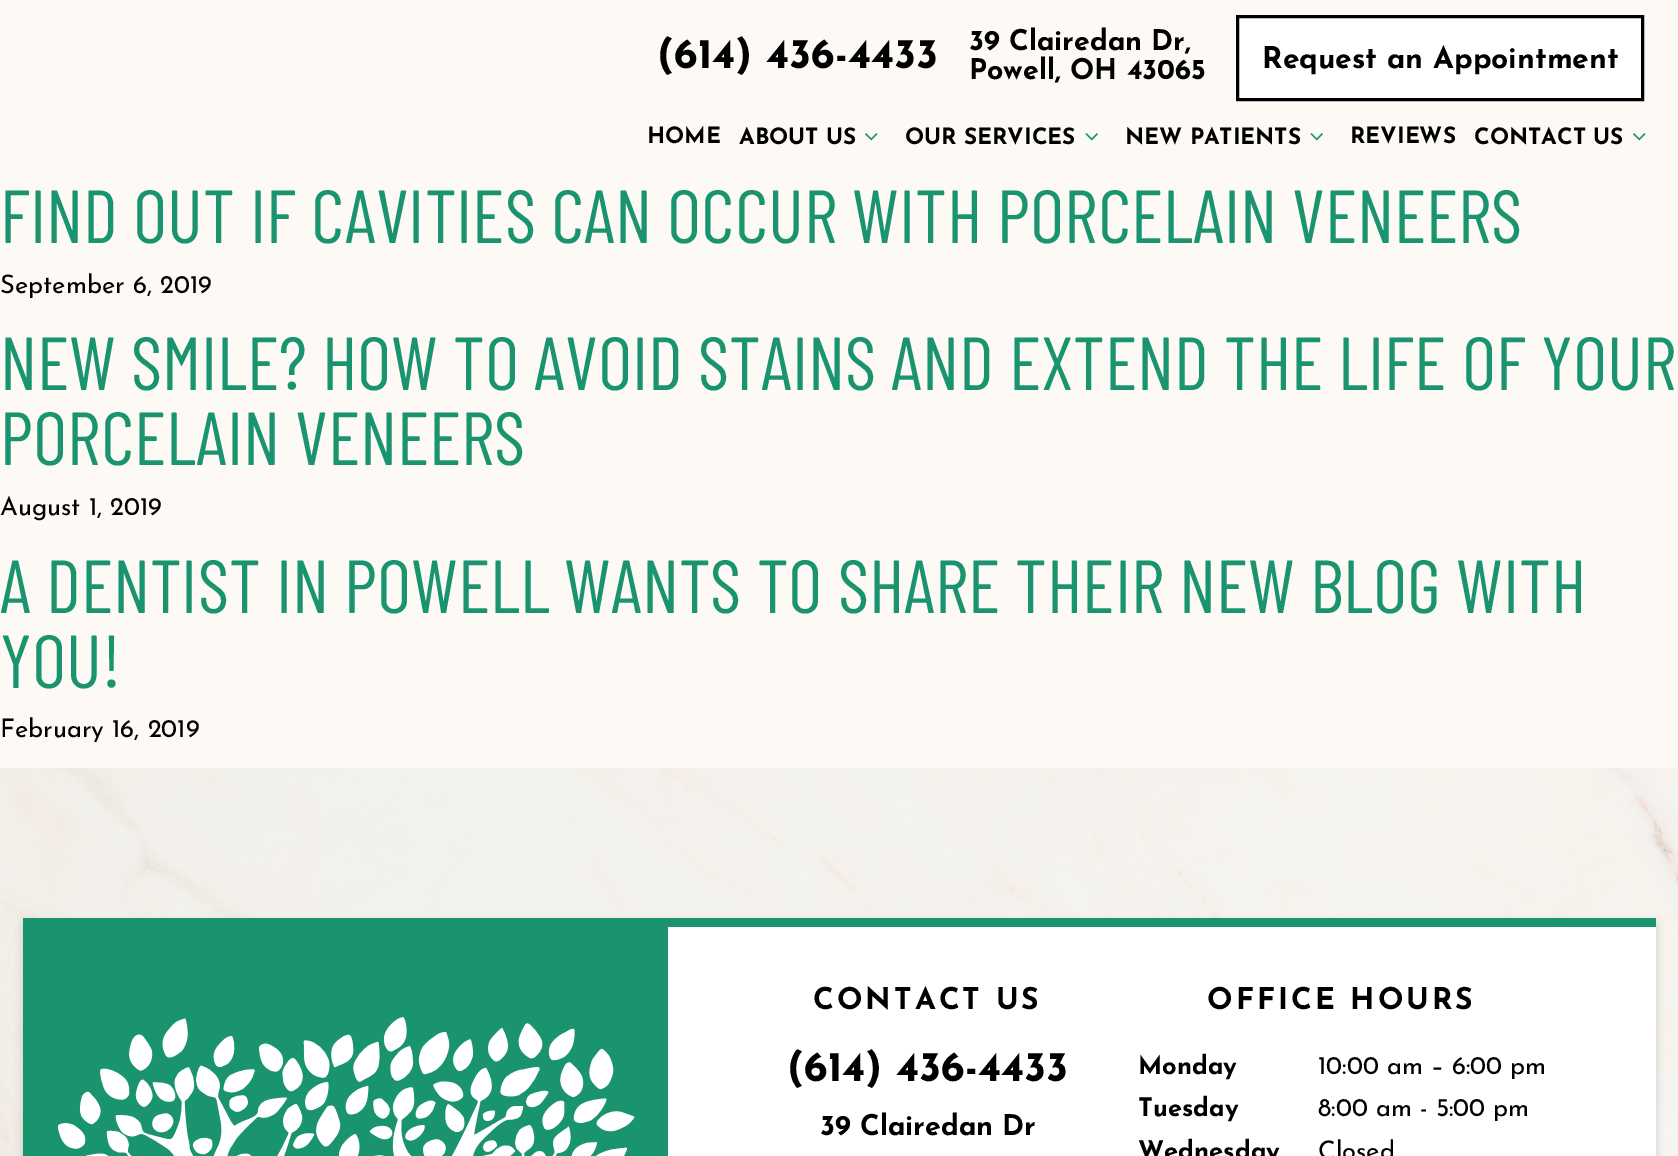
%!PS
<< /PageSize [1678 1156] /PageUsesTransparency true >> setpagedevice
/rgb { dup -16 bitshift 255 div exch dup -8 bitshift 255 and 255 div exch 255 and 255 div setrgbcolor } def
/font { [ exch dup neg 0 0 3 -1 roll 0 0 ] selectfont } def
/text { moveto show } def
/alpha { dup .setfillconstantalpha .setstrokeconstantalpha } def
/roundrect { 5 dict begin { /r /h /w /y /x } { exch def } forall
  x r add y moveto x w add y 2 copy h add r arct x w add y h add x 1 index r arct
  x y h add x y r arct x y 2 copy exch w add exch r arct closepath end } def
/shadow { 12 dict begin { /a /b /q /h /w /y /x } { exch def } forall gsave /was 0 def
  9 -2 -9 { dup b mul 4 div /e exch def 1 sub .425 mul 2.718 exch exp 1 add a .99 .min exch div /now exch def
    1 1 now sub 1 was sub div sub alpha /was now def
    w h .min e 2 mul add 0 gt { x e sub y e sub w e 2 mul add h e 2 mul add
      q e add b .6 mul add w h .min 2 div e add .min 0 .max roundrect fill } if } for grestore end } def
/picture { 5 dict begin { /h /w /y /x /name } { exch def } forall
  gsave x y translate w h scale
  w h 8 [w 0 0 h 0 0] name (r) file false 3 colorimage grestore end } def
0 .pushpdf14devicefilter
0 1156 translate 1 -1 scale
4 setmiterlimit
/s1 { /JosefinSans-Bold 42 font 16#000000 rgb } def
/s2 { /JosefinSans-Bold 28.5 font 16#000000 rgb } def
/s3 { /JosefinSans-Bold 30 font 16#000000 rgb } def
/s4 { /JosefinSans-Bold 22.5 font 16#000000 rgb } def
/s5 { /BarlowCondensed-Regular 75 font 16#1A936F rgb } def
/s6 { /JosefinSans-Regular 25.5 font 16#000000 rgb } def
/s7 { /JosefinSans-Bold 25.5 font 16#000000 rgb } def
16#FDFAF5 rgb
0 0 1678 1156 rectfill
s1
(\(614\) 436-4433) 657 68 text
s2
(39 Clairedan Dr,) 969 50 text
(Powell, OH 43065) 969 79 text
16#FFFFFF rgb
1237.5 16.5 moveto 1642.5 16.5 lineto 1642.5 99.5 lineto 1237.5 99.5 lineto closepath gsave fill grestore
16#000000 rgb
3 setlinewidth
stroke
s3
(Request an Appointment) 1262 68 text
s4
(HOME) 647 143 text
(ABOUT US) 739 144 text
(pic1.raw) 865 133 13 8 picture
(OUR SERVICES) 905 144 text
(pic2.raw) 1085 133 13 8 picture
(NEW PATIENTS) 1125 144 text
(pic2.raw) 1310 133 13 8 picture
(REVIEWS) 1350 143 text
(CONTACT US) 1474 144 text
(pic1.raw) 1633 133 13 8 picture
s5
(FIND OUT IF CAVITIES CAN OCCUR WITH PORCELAIN VENEERS) 0 243 text
s6
(September 6, 2019) 0 293 text
s5
(NEW SMILE? HOW TO AVOID STAINS AND EXTEND THE LIFE OF YOUR) 0 390 text
(PORCELAIN VENEERS) 0 465 text
s6
(August 1, 2019) 0 515 text
s5
(A DENTIST IN POWELL WANTS TO SHARE THEIR NEW BLOG WITH) 0 613 text
(YOU!) 0 688 text
s6
(February 16, 2019) 0 737 text
(pic3.raw) 0 768 1678 388 picture
23 923 1633 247 0 4.5 0.16 shadow
16#FFFFFF rgb
668 927 988 229 rectfill
16#1A936F rgb
23 918 1633 9 rectfill
23 927 645 229 rectfill
(pic4.raw) 57 1017 578 139 picture
/JosefinSans-Bold 30 font
16#000000 rgb
813 1009 moveto 3 0 (CONTACT US) ashow
s1
(\(614\) 436-4433) 787 1081 text
s2
(39 Clairedan Dr) 820 1135 text
/JosefinSans-Bold 30 font
1207 1009 moveto 3 0 (OFFICE HOURS) ashow
s7
(Monday) 1138 1074 text
s6
(10:00 am – 6:00 pm) 1318 1074 text
s7
(Tuesday) 1138 1116 text
s6
(8:00 am - 5:00 pm) 1318 1116 text
s7
(Wednesday) 1138 1159 text
s6
(Closed) 1318 1159 text
.poppdf14devicefilter showpage
